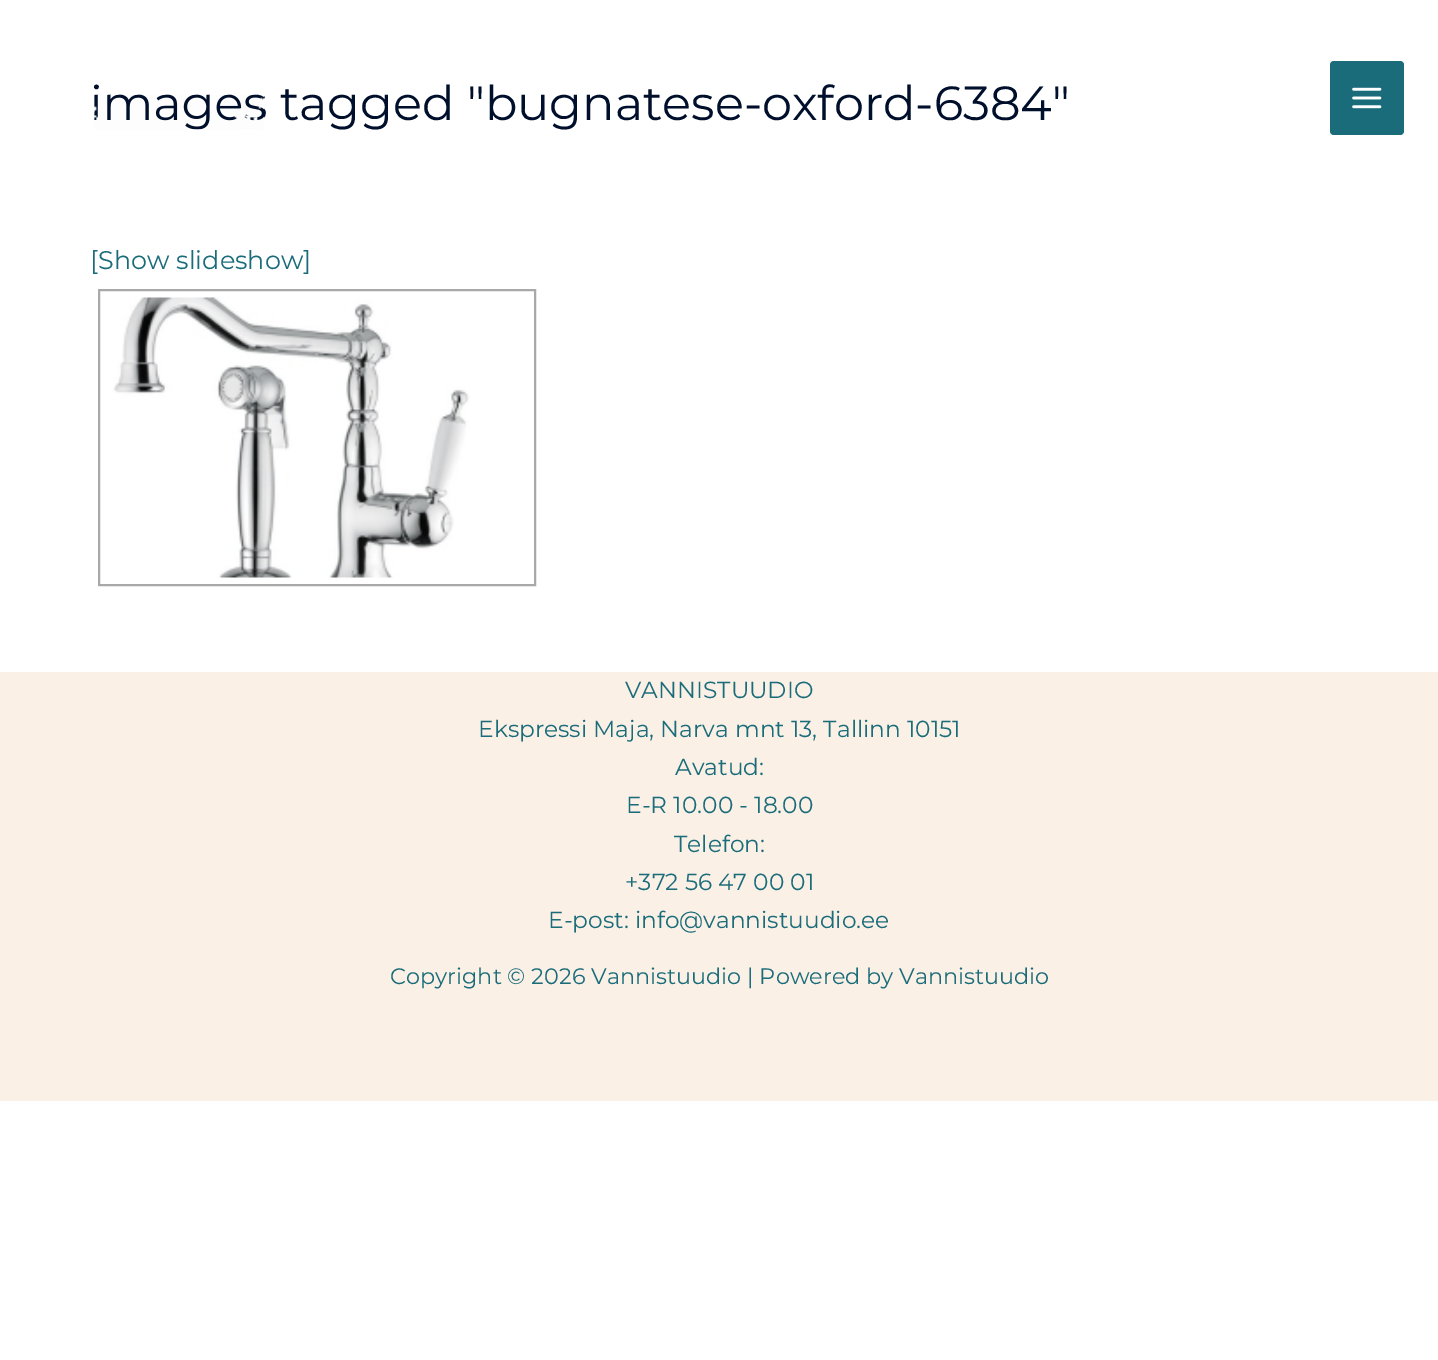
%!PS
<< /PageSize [1438 1360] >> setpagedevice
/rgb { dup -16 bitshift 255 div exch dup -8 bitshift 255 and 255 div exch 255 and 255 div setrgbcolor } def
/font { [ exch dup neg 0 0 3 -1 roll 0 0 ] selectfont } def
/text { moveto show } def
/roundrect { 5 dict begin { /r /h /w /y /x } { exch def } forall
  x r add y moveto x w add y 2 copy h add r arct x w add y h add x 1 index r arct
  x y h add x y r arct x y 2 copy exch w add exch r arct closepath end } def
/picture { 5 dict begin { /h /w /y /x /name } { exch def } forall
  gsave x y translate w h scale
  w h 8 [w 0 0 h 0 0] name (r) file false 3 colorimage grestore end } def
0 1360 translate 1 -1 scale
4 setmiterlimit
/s1 { /Montserrat-Regular 47.9 font 16#000F2B rgb } def
/s2 { /Montserrat-Regular 25.5 font 16#1A6C7A rgb } def
/s3 { /Montserrat-Regular 23.3 font 16#1A6C7A rgb } def
/s4 { /Montserrat-Regular 22.35 font 16#1A6C7A rgb } def
16#FFFFFF rgb
0 0 1438 1360 rectfill
s1
(images tagged "bugnatese-oxford-6384") 90 120 text
(pic1.raw) 94 95 170 35 picture
16#1A6C7A rgb
1330 61 74 74 4 roundrect fill
(pic2.raw) 1352 87 30 22 picture
s2
([Show slideshow]) 90 269 text
16#A9A9A9 rgb
2 setlinewidth
99 290 436 295 rectstroke
(pic3.raw) 113 297 357 281 picture
16#FAF0E6 rgb
0 672 1438 429 rectfill
s3
(VANNISTUUDIO) 625 698 text
(Ekspressi Maja, Narva mnt 13, Tallinn 10151) 478 737 text
(Avatud:) 675 775 text
(E-R 10.00 - 18.00) 626 813 text
(Telefon:) 674 852 text
(+372 56 47 00 01) 625 890 text
(E-post: info@vannistuudio.ee) 548 928 text
s4
(Copyright © 2026 Vannistuudio | Powered by Vannistuudio) 390 984 text
showpage
